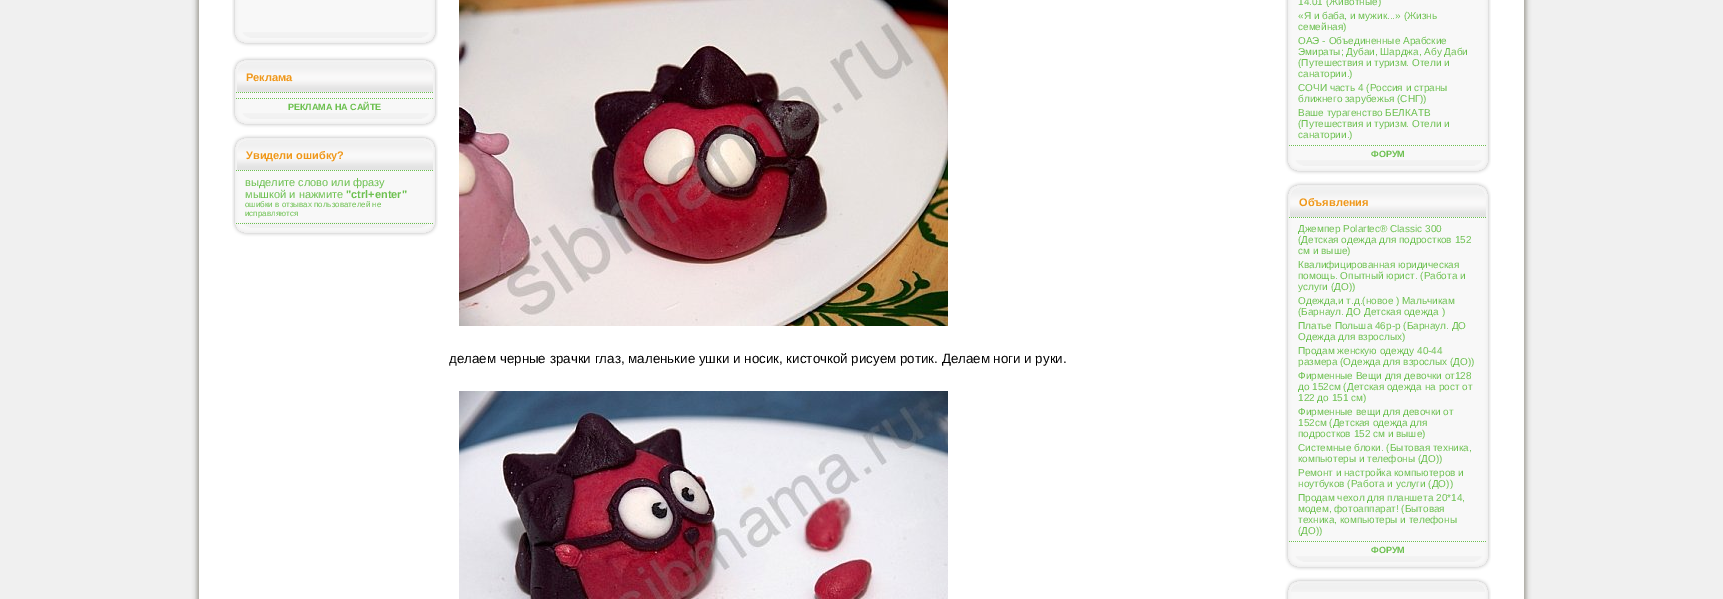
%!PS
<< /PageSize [1723 599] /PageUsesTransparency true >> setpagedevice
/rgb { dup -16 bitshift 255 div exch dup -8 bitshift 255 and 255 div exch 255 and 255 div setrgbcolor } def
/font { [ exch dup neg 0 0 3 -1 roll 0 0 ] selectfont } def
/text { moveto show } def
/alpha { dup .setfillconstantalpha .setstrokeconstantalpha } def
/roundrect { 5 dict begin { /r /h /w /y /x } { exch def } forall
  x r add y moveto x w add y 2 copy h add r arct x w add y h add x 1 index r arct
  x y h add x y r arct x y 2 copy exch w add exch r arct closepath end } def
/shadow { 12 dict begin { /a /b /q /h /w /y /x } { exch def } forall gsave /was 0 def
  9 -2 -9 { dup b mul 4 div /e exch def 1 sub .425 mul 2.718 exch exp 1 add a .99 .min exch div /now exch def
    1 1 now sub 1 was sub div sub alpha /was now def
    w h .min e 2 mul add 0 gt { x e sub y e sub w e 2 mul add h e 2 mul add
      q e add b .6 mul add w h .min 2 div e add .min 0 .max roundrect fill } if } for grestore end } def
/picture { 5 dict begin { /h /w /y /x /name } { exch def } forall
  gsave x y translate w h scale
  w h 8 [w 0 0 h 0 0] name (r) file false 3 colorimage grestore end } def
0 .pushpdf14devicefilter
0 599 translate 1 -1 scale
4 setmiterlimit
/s1 { /LiberationSans-Bold 11 font 16#EF9719 rgb } def
/s2 { /LiberationSans-Bold 9 font 16#6CC04F rgb } def
/s3 { /LiberationSans-Regular 11 font 16#6CC04F rgb } def
/s4 { /LiberationSans-Bold 11 font 16#6CC04F rgb } def
/s5 { /LiberationSans-Regular 8 font 16#6CC04F rgb } def
/s6 { /LiberationSans-Regular 10 font 16#6CC04F rgb } def
/s7 { /LiberationSans-Regular 13.35 font 16#000000 rgb } def
16#F0F0F0 rgb
0 0 1723 599 rectfill
16#9D9A93 rgb
197 -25 1329 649 17 2.5 1 shadow
16#FFFFFF rgb
199 0 1325 599 rectfill
(pic1.raw) 232 0 206 32 picture
(pic2.raw) 232 32 206 17 picture
(pic3.raw) 232 92 206 21 picture
(pic2.raw) 232 113 206 17 picture
(pic4.raw) 232 52 206 40 picture
s1
(Реклама) 246 81 text
(pic5.raw) 236 92 197 1 picture
(pic5.raw) 236 98 197 1 picture
s2
(РЕКЛАМА НА САЙТЕ) 288 110 text
(pic6.raw) 232 170 206 52 picture
(pic2.raw) 232 222 206 17 picture
(pic4.raw) 232 130 206 40 picture
s1
(Увидели ошибку?) 246 159 text
(pic5.raw) 236 170 197 1 picture
s3
(выделите слово или фразу) 245 186 text
(мышкой и нажмите) 245 198 text
s4
("ctrl+enter") 346 198 text
s5
(ошибки в отзывах пользователей не) 245 207 text
(исправляются) 245 216 text
(pic7.raw) 236 223 197 1 picture
(pic8.raw) 1285 0 206 160 picture
(pic2.raw) 1285 160 206 17 picture
s6
(14.01 \(Животные\)) 1298 5 text
(«Я и баба, и мужик...» \(Жизнь) 1298 19 text
(семейная\)) 1298 30 text
(ОАЭ - Объединенные Арабские) 1298 44 text
(Эмираты; Дубаи, Шарджа, Абу Даби) 1298 55 text
(\(Путешествия и туризм. Отели и) 1298 66 text
(санатории.\)) 1298 77 text
(СОЧИ часть 4 \(Россия и страны) 1298 91 text
(ближнего зарубежья \(СНГ\)\)) 1298 102 text
(Ваше турагенство БЕЛКАТВ) 1298 116 text
(\(Путешествия и туризм. Отели и) 1298 127 text
(санатории.\)) 1298 138 text
(pic5.raw) 1289 145 197 1 picture
s2
(ФОРУМ) 1371 157 text
(pic9.raw) 1285 217 206 339 picture
(pic2.raw) 1285 556 206 17 picture
(pic4.raw) 1285 177 206 40 picture
s1
(Объявления) 1299 206 text
(pic5.raw) 1289 217 197 1 picture
s6
(Джемпер Polartec® Classic 300) 1298 232 text
(\(Детская одежда для подростков 152) 1298 243 text
(см и выше\)) 1298 254 text
(Квалифицированная юридическая) 1298 268 text
(помощь. Опытный юрист. \(Работа и) 1298 279 text
(услуги \(ДО\)\)) 1298 290 text
(Одежда,и т.д.\(новое \) Мальчикам) 1298 304 text
(\(Барнаул. ДО Детская одежда \)) 1298 315 text
(Платье Польша 46р-р \(Барнаул. ДО) 1298 329 text
(Одежда для взрослых\)) 1298 340 text
(Продам женскую одежду 40-44) 1298 354 text
(размера \(Одежда для взрослых \(ДО\)\)) 1298 365 text
(Фирменные Вещи для девочки от128) 1298 379 text
(до 152см \(Детская одежда на рост от) 1298 390 text
(122 до 151 см\)) 1298 401 text
(Фирменные вещи для девочки от) 1298 415 text
(152см \(Детская одежда для) 1298 426 text
(подростков 152 см и выше\)) 1298 437 text
(Системные блоки. \(Бытовая техника,) 1298 451 text
(компьютеры и телефоны \(ДО\)\)) 1298 462 text
(Ремонт и настройка компьютеров и) 1298 476 text
(ноутбуков \(Работа и услуги \(ДО\)\)) 1298 487 text
(Продам чехол для планшета 20*14,) 1298 501 text
(модем, фотоаппарат! \(Бытовая) 1298 512 text
(техника, компьютеры и телефоны) 1298 523 text
(\(ДО\)\)) 1298 534 text
(pic5.raw) 1289 541 197 1 picture
s2
(ФОРУМ) 1371 553 text
(pic10.raw) 1285 592 206 7 picture
(pic11.raw) 1285 573 206 19 picture
(pic12.raw) 459 0 489 326 picture
s7
(делаем черные зрачки глаз, маленькие ушки и носик, кисточкой рисуем ротик. Делаем ноги и руки.) 449 363 text
(pic13.raw) 459 391 489 208 picture
.poppdf14devicefilter showpage
